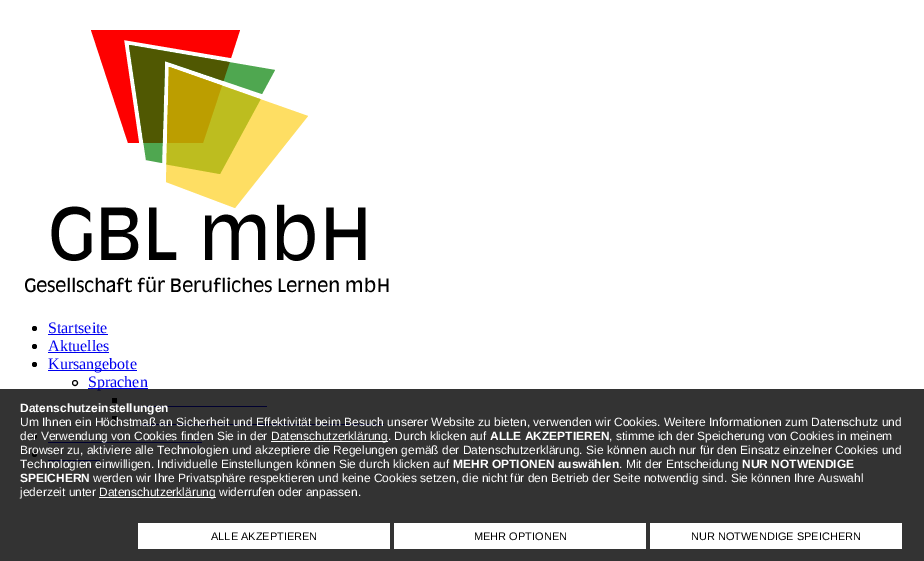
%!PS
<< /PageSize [924 561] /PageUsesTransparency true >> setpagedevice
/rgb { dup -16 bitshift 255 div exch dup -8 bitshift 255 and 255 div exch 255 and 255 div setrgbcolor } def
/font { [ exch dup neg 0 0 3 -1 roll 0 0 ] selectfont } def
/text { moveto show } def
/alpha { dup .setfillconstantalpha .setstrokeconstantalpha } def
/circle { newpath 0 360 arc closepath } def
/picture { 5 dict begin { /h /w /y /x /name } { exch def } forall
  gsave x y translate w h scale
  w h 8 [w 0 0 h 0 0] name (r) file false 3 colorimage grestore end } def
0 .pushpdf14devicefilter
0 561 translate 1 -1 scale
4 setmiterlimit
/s1 { /LiberationSerif-Regular 16 font 16#0000EE rgb } def
/s2 { /LiberationSans-Bold 12 font 16#FFFFFF rgb } def
/s3 { /LiberationSans-Regular 12 font 16#FFFFFF rgb } def
/s4 { /LiberationSans-Regular 11 font 16#000000 rgb } def
16#FFFFFF rgb
0 0 924 561 rectfill
(pic1.raw) 25 30 364 263 picture
16#000000 rgb
34.5 328.5 2.5 circle fill
s1
(Startseite) 48 333 text
48 334 60 1 rectfill
16#000000 rgb
34.5 346.5 2.5 circle fill
s1
(Aktuelles) 48 351 text
48 352 61 1 rectfill
16#000000 rgb
34.5 364.5 2.5 circle fill
16#0000EE rgb
48 370 89 1 rectfill
(Kursangebote) 48 369 text
16#000000 rgb
75 383 2.5 circle stroke
16#0000EE rgb
88 388 60 1 rectfill
(Sprachen) 88 387 text
16#000000 rgb
112 398 5 5 rectfill
16#0000EE rgb
140 406 127 1 rectfill
16#000000 rgb
112 416 5 5 rectfill
16#0000EE rgb
140 424 244 1 rectfill
16#000000 rgb
34.5 436.5 2.5 circle fill
16#0000EE rgb
48 442 154 1 rectfill
16#000000 rgb
34.5 454.5 2.5 circle fill
16#0000EE rgb
48 460 52 1 rectfill
0.8 alpha
16#000000 rgb
0 389 924 172 rectfill
1 alpha
s2
(Datenschutzeinstellungen) 20 412 text
s3
(Um Ihnen ein Höchstmaß an Sicherheit und Effektivität beim Besuch unserer Website zu bieten, verwenden wir Cookies. Weitere Informationen zum Datenschutz und) 20 426 text
(der Verwendung von Cookies finden Sie in der) 20 440 text
271 441 117 1 rectfill
(Datenschutzerklärung. Durch klicken auf) 271 440 text
s2
(ALLE AKZEPTIEREN) 490 440 text
s3
(, stimme ich der Speicherung von Cookies in meinem) 609 440 text
(Browser zu, aktiviere alle Technologien und akzeptiere die Regelungen gemäß der Datenschutzerklärung. Sie können auch nur für den Einsatz einzelner Cookies und) 20 454 text
(Technologien einwilligen. Individuelle Einstellungen können Sie durch klicken auf) 20 468 text
s2
(MEHR OPTIONEN auswählen) 453 468 text
s3
(. Mit der Entscheidung) 619 468 text
s2
(NUR NOTWENDIGE) 742 468 text
(SPEICHERN) 20 482 text
s3
(werden wir Ihre Privatsphäre respektieren und keine Cookies setzen, die nicht für den Betrieb der Seite notwendig sind. Sie können Ihre Auswahl) 93 482 text
(jederzeit unter) 20 496 text
99 497 117 1 rectfill
(Datenschutzerklärung widerrufen oder anpassen.) 99 496 text
138 523 252 26 rectfill
s4
(ALLE AKZEPTIEREN) 211 540 text
16#FFFFFF rgb
394 523 252 26 rectfill
s4
(MEHR OPTIONEN) 474 540 text
16#FFFFFF rgb
650 523 252 26 rectfill
s4
(NUR NOTWENDIGE SPEICHERN) 691 540 text
.poppdf14devicefilter showpage
